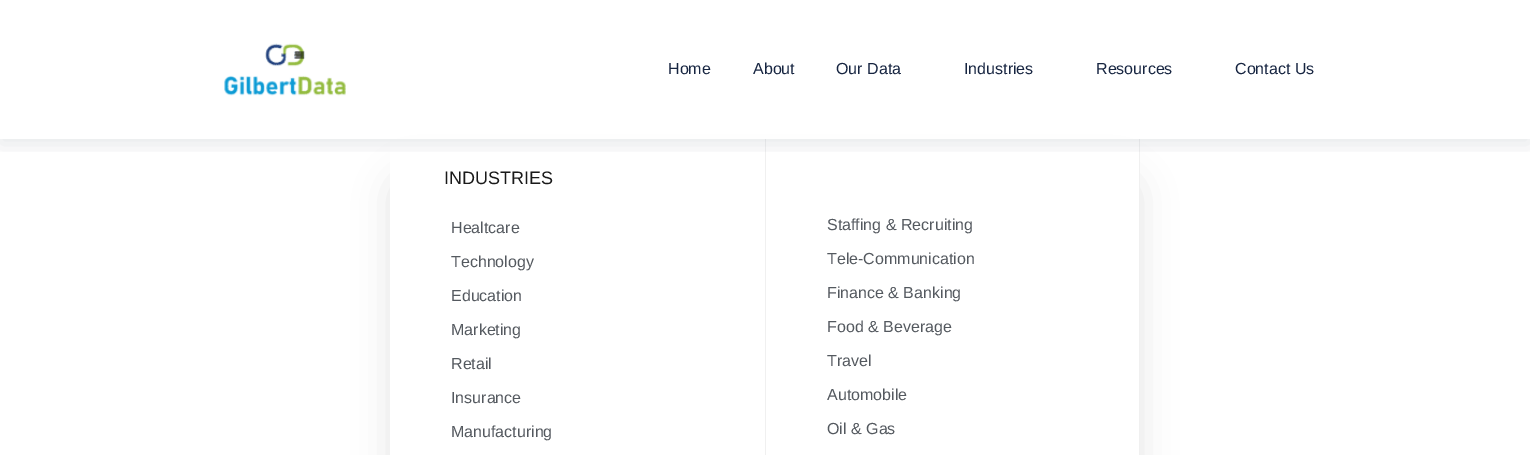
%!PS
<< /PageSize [1530 455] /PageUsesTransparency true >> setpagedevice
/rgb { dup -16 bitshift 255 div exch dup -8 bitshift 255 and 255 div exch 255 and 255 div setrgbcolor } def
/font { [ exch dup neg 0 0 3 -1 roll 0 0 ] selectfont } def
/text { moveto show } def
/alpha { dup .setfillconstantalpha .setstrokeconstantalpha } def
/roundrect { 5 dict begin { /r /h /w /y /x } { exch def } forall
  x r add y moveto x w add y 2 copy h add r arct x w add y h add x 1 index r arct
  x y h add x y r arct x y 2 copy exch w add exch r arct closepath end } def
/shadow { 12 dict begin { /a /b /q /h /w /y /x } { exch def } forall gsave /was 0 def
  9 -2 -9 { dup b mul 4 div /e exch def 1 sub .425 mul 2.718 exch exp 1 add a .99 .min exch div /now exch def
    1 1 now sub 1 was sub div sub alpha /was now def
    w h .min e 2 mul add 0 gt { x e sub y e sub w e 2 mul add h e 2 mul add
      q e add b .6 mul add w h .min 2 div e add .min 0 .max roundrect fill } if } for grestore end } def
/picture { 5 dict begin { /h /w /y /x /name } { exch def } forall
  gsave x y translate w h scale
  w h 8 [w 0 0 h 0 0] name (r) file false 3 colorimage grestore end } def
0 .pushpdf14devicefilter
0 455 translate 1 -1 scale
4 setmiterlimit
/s1 { /LiberationSans-Regular 16 font 16#172541 rgb } def
/s2 { /LiberationSans-Regular 18 font 16#1A1A1A rgb } def
/s3 { /LiberationSans-Regular 16 font 16#54595F rgb } def
16#FFFFFF rgb
0 0 1530 455 rectfill
gsave
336 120 moveto 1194 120 lineto 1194 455 lineto 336 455 lineto closepath 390 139 moveto 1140 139 lineto 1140 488 lineto 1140 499 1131 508 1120 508 curveto 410 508 lineto 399 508 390 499 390 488 curveto closepath eoclip newpath
16#000000 rgb
390 174 750 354 20 17.5 0.1 shadow
grestore
16#F0F0F0 rgb
1139 139 1 316 rectfill
765 139 1 316 rectfill
gsave
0 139 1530 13 rectclip
16#07193C rgb
0 5 1530 139 0 10 0.1 shadow
grestore
(pic1.raw) 224 43 122 53 picture
s1
(Home) 668 74 text
(About) 753 74 text
(Our Data) 836 74 text
(Industries) 964 74 text
(Resources) 1096 74 text
(Contact Us) 1235 74 text
s2
(INDUSTRIES) 444 184 text
s3
(Healtcare) 451 233 text
(Technology) 451 267 text
(Education) 451 301 text
(Marketing) 451 335 text
(Retail) 451 369 text
(Insurance) 451 403 text
(Manufacturing) 451 437 text
(Staffing & Recruiting) 827 230 text
(Tele-Communication) 827 264 text
(Finance & Banking) 827 298 text
(Food & Beverage) 827 332 text
(Travel) 827 366 text
(Automobile) 827 400 text
(Oil & Gas) 827 434 text
.poppdf14devicefilter showpage
